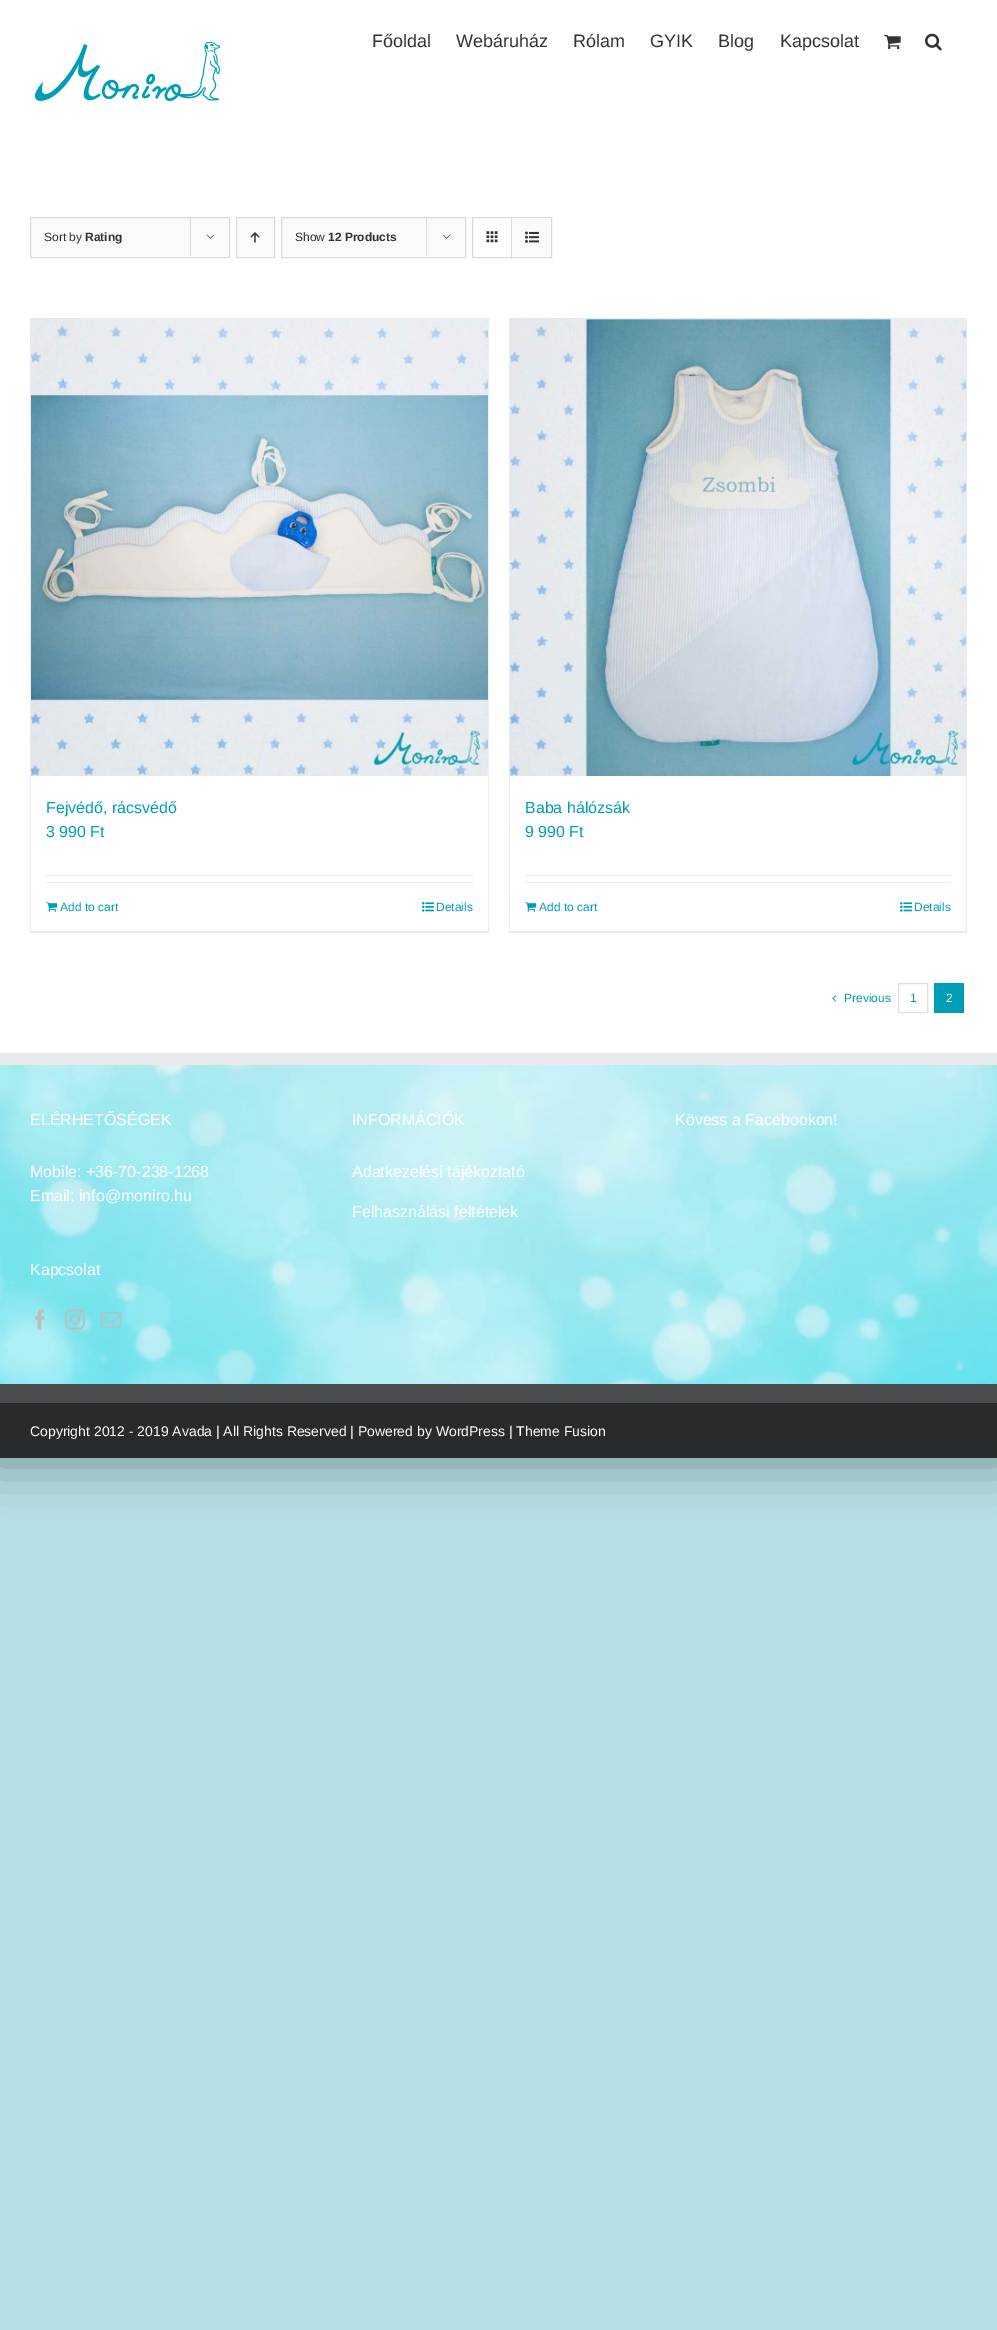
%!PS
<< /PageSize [997 2330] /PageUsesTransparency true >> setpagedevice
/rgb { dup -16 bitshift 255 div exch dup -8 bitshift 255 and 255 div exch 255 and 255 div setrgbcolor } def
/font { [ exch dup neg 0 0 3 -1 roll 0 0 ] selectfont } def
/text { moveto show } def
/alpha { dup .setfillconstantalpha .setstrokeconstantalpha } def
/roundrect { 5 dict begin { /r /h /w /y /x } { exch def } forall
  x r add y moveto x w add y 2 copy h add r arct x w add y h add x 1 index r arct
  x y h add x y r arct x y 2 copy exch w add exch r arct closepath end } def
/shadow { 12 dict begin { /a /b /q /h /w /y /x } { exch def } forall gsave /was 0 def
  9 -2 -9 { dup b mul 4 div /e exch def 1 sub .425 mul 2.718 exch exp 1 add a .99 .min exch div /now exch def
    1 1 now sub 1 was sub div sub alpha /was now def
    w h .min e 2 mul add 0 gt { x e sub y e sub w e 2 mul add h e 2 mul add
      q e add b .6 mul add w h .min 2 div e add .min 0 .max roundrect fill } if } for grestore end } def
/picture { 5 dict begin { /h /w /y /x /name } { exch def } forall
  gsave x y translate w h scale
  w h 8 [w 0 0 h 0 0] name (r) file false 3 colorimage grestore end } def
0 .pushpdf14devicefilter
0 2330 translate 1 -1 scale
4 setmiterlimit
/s1 { /LiberationSans-Regular 18 font 16#333333 rgb } def
/s2 { /LiberationSans-Regular 12 font 16#333333 rgb } def
/s3 { /LiberationSans-Bold 12 font 16#333333 rgb } def
/s4 { /LiberationSans-Regular 16 font 16#009EB4 rgb } def
/s5 { /LiberationSans-Regular 12 font 16#009EB4 rgb } def
/s6 { /LiberationSans-Regular 12 font 16#FFFFFF rgb } def
/s7 { /LiberationSans-Regular 16 font 16#FFFFFF rgb } def
/s8 { /LiberationSans-Regular 14 font 16#FFFFFF rgb } def
16#B7DFE4 rgb
0 0 997 2330 rectfill
16#000000 rgb
-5 -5 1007 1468 0 25 0.35 shadow
16#FFFFFF rgb
0 0 997 1053 rectfill
(pic1.raw) 35 42 185 59 picture
s1
(Főoldal) 372 47 text
(Webáruház) 456 47 text
(Rólam) 573 47 text
(GYIK) 650 47 text
(Blog) 718 47 text
(Kapcsolat) 780 47 text
(pic2.raw) 884 35 17 15 picture
(pic3.raw) 925 33 17 18 picture
16#FBFAF9 rgb
30.5 217.5 moveto 229.5 217.5 lineto 229.5 257.5 lineto 30.5 257.5 lineto closepath gsave fill grestore
16#DBDBDB rgb
stroke
s2
(Sort by) 44 241 text
s3
(Rating) 85 241 text
16#DBDBDB rgb
190 217 1 39 rectfill
(pic4.raw) 206 234 9 5 picture
16#FBFAF9 rgb
236.5 217.5 moveto 274.5 217.5 lineto 274.5 257.5 lineto 236.5 257.5 lineto closepath gsave fill grestore
16#DBDBDB rgb
stroke
(pic5.raw) 250 232 10 11 picture
16#FBFAF9 rgb
281.5 217.5 moveto 465.5 217.5 lineto 465.5 257.5 lineto 281.5 257.5 lineto closepath gsave fill grestore
16#DBDBDB rgb
stroke
s2
(Show) 295 241 text
s3
(12 Products) 328 241 text
16#DBDBDB rgb
426 217 1 39 rectfill
(pic4.raw) 442 234 9 5 picture
472.5 217.5 79 40 rectstroke
511 218 1 39 rectfill
(pic6.raw) 486 231 12 12 picture
16#FBFAF9 rgb
512 218 39 39 rectfill
(pic7.raw) 525 231 14 12 picture
16#EBEAEA rgb
30 318 459 1 rectfill
488 318 1 615 rectfill
30 931 459 2 rectfill
30 318 1 615 rectfill
(pic8.raw) 31 319 457 457 picture
s4
(Fejvédő, rácsvédő) 46 813 text
(3 990 Ft) 46 837 text
16#EBEAEA rgb
46 875 427 1 rectfill
46 882 427 1 rectfill
(pic9.raw) 46 902 12 10 picture
s5
(Add to cart) 60 911 text
(pic10.raw) 422 902 12 10 picture
(Details) 436 911 text
16#EBEAEA rgb
509 318 458 1 rectfill
966 318 1 615 rectfill
509 931 458 2 rectfill
509 318 1 615 rectfill
(pic11.raw) 510 319 456 457 picture
s4
(Baba hálózsák) 525 813 text
(9 990 Ft) 525 837 text
16#EBEAEA rgb
525 875 426 1 rectfill
525 882 426 1 rectfill
(pic9.raw) 525 902 12 10 picture
s5
(Add to cart) 539 911 text
(pic10.raw) 900 902 12 10 picture
(Details) 914 911 text
(pic12.raw) 832 995 5 7 picture
(Previous) 844 1002 text
16#E0DEDE rgb
898.5 983.5 29 29 rectstroke
s5
(1) 910 1002 text
934 983 30 30 rectfill
s6
(2) 946 1002 text
(pic13.raw) 0 1065 997 319 picture
16#E9EAEE rgb
0 1053 997 12 rectfill
s7
(ELÉRHETŐSÉGEK) 30 1125 text
(Mobile: +36-70-238-1268) 30 1177 text
(Email: info@moniro.hu) 30 1201 text
(Kapcsolat) 30 1275 text
(pic14.raw) 35 1309 10 21 picture
(pic15.raw) 65 1309 20 21 picture
(pic16.raw) 101 1312 20 16 picture
(INFORMÁCIÓK) 352 1125 text
(Adatkezelési tájékoztató) 352 1177 text
(Felhasználási feltételek) 352 1217 text
(Kövess a Facebookon!) 675 1125 text
16#282A2B rgb
0 1403 997 55 rectfill
16#4B4C4D rgb
0 1384 997 19 rectfill
s8
(Copyright 2012 - 2019 Avada | All Rights Reserved | Powered by WordPress | Theme Fusion) 30 1436 text
.poppdf14devicefilter showpage
